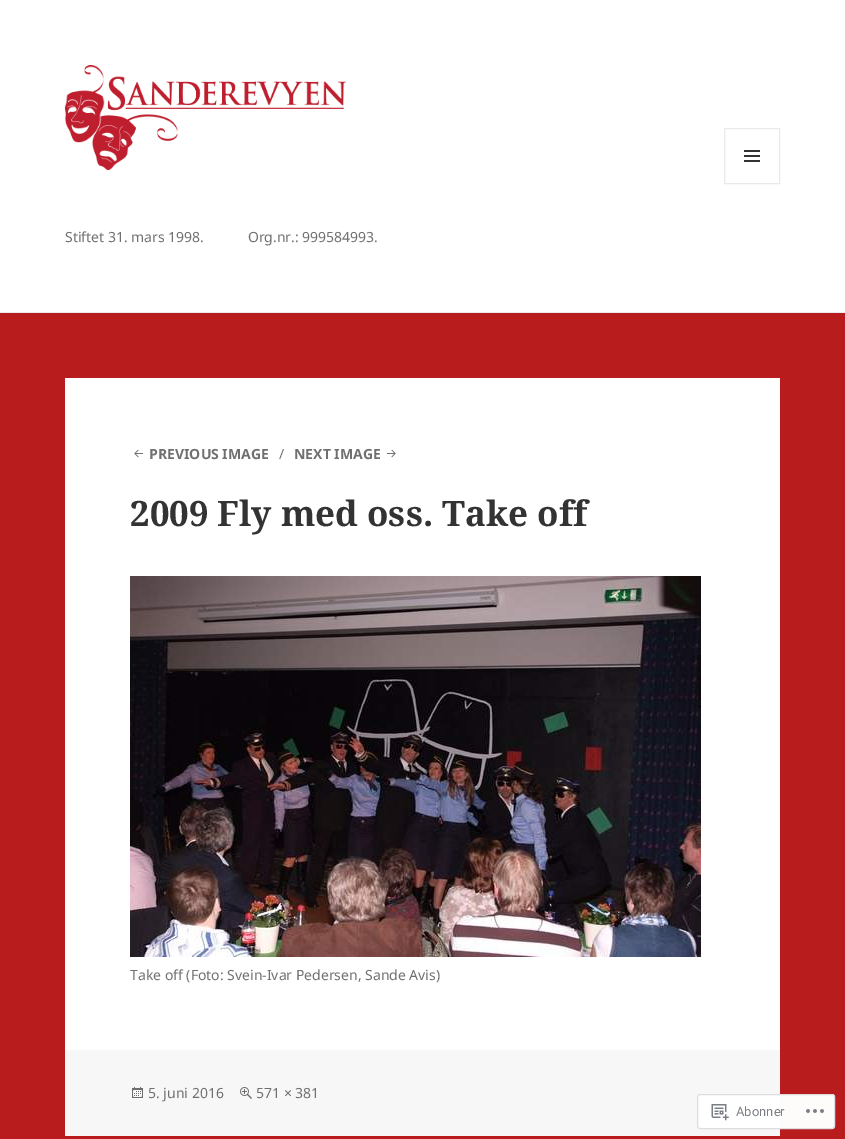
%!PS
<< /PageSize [845 1139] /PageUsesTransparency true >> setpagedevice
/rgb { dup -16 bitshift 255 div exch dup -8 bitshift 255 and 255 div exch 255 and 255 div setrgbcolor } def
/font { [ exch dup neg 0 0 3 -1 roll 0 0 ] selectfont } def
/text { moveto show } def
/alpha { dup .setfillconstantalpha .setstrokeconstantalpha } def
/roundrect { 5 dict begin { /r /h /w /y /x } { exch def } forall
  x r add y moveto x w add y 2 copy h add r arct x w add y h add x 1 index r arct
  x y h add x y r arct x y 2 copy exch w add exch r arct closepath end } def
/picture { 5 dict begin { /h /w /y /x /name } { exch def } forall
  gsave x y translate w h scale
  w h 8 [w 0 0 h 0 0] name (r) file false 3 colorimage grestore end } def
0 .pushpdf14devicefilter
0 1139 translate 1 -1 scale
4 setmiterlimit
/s1 { /NotoSans-Regular 14 font 16#707070 rgb } def
/s2 { /NotoSans-Bold 14 font 16#707070 rgb } def
/s3 { /NotoSerif-Bold 35 font 16#333333 rgb } def
/s4 { /Roboto-Regular 13 font 16#7B7F84 rgb } def
16#B91C1C rgb
0 0 845 1139 rectfill
16#FFFFFF rgb
0 0 845 312 rectfill
16#EBEBEB rgb
0 312 845 1 rectfill
(pic1.raw) 65 65 281 105 picture
16#EAEAEA rgb
724.5 128.5 55 55 rectstroke
(pic2.raw) 744 150 16 12 picture
s1
(Stiftet 31. mars 1998.            Org.nr.: 999584993.) 65 242 text
16#FFFFFF rgb
65 378 715 672 rectfill
(pic3.raw) 134 449 9 9 picture
s2
(PREVIOUS IMAGE) 149 459 text
s1
(∕) 279 459 text
s2
(NEXT IMAGE) 294 459 text
(pic4.raw) 387 449 9 9 picture
s3
(2009 Fly med oss. Take off) 130 526 text
(pic5.raw) 130 576 571 381 picture
s1
(Take off \(Foto: Svein-Ivar Pedersen, Sande Avis\)) 130 980 text
16#F7F7F7 rgb
65 1050 715 86 rectfill
(pic6.raw) 132 1087 11 11 picture
s1
(5. juni 2016) 148 1098 text
(pic7.raw) 240 1087 12 12 picture
(571 × 381) 256 1098 text
0.98 alpha
16#FFFFFF rgb
697 1094 138 35 3 roundrect fill
16#DCDCDE rgb
697.5 1094.5 137 34 2.5 roundrect stroke
1 alpha
(pic8.raw) 711 1104 18 17 picture
s4
(Abonner) 736 1116 text
(pic9.raw) 806 1109 18 4 picture
.poppdf14devicefilter showpage
